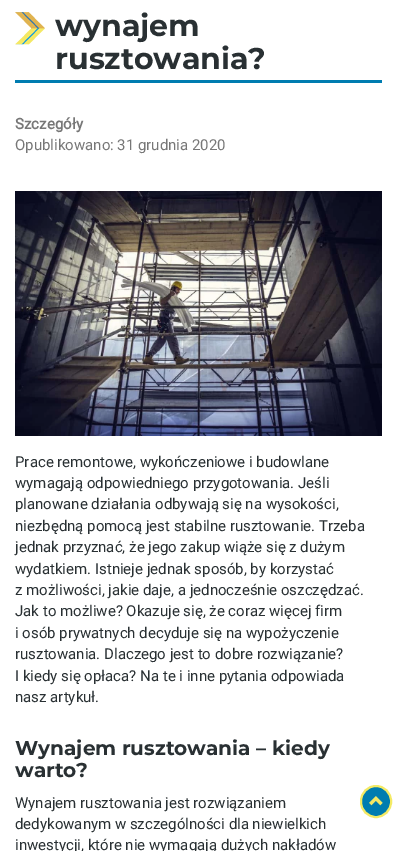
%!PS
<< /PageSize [397 851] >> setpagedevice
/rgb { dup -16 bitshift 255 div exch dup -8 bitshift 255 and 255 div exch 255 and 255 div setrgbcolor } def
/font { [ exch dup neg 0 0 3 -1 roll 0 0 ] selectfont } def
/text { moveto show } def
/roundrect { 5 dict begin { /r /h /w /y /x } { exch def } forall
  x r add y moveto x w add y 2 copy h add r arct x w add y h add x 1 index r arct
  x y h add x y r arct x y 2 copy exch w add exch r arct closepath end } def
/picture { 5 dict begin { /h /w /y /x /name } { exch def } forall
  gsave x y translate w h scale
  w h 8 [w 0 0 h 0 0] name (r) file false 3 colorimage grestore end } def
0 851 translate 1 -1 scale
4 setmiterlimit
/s1 { /Montserrat-Bold 30 font 16#293033 rgb } def
/s2 { /Roboto-Bold 15 font 16#777777 rgb } def
/s3 { /Roboto-Regular 15 font 16#777777 rgb } def
/s4 { /Roboto-Regular 15 font 16#293033 rgb } def
/s5 { /Montserrat-Bold 20 font 16#293033 rgb } def
16#FFFFFF rgb
0 0 397 851 rectfill
(pic1.raw) 15 12 30 33 picture
16#007CB0 rgb
15 80 367 3 rectfill
s1
(wynajem) 55 36 text
(rusztowania?) 55 69 text
s2
(Szczegóły) 15 129 text
s3
(Opublikowano: 31 grudnia 2020) 15 150 text
(pic2.raw) 15 191 367 245 picture
s4
(Prace remontowe, wykończeniowe i budowlane) 15 467 text
(wymagają odpowiedniego przygotowania. Jeśli) 15 488 text
(planowane działania odbywają się na wysokości,) 15 509 text
(niezbędną pomocą jest stabilne rusztowanie. Trzeba) 15 531 text
(jednak przyznać, że jego zakup wiąże się z dużym) 15 552 text
(wydatkiem. Istnieje jednak sposób, by korzystać) 15 574 text
(z możliwości, jakie daje, a jednocześnie oszczędzać.) 15 595 text
(Jak to możliwe? Okazuje się, że coraz więcej firm) 15 616 text
(i osób prywatnych decyduje się na wypożyczenie) 15 638 text
(rusztowania. Dlaczego jest to dobre rozwiązanie?) 15 659 text
(I kiedy się opłaca? Na te i inne pytania odpowiada) 15 681 text
(nasz artykuł.) 15 702 text
s5
(Wynajem rusztowania – kiedy) 15 755 text
(warto?) 15 777 text
s4
(Wynajem rusztowania jest rozwiązaniem) 15 808 text
(dedykowanym w szczególności dla niewielkich) 15 829 text
(inwestycji, które nie wymagają dużych nakładów) 15 850 text
16#007CB0 rgb
361 786 30 31 15 roundrect gsave fill grestore
16#F4EA64 rgb
2 setlinewidth
stroke
(pic3.raw) 369 796 14 10 picture
showpage
